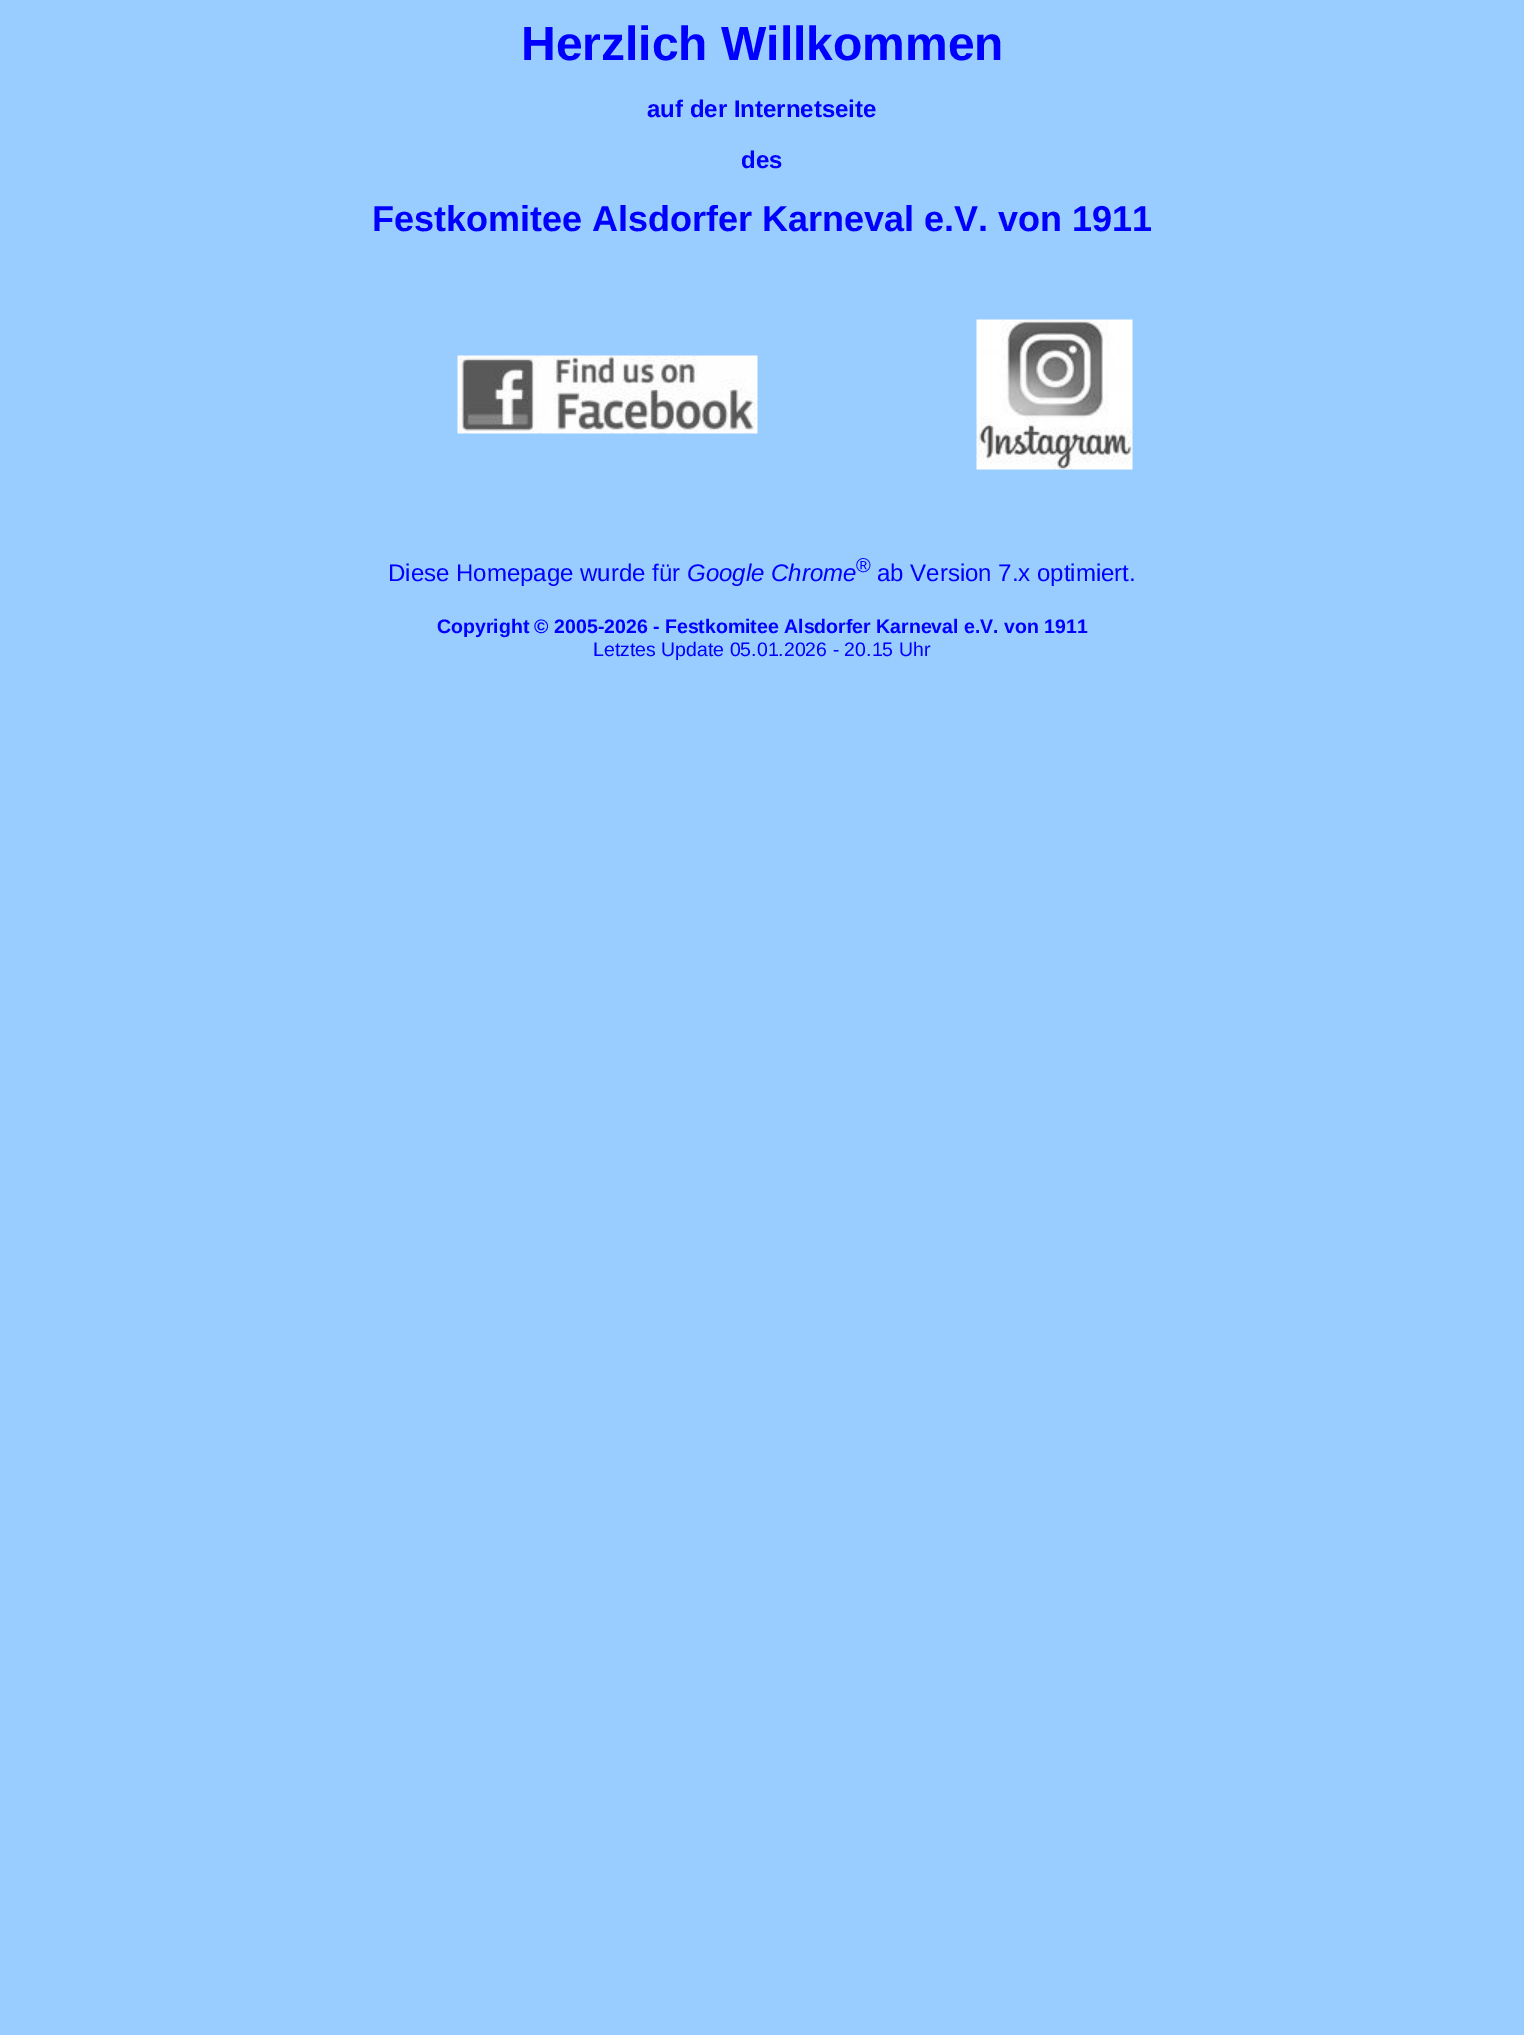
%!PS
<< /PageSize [1524 2035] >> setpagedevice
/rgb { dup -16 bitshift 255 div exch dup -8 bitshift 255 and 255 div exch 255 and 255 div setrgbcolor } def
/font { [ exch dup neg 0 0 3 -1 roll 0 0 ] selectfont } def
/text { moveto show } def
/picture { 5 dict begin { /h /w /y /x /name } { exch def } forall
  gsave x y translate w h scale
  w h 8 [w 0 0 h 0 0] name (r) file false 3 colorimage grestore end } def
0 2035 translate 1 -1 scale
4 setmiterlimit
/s1 { /LiberationSans-Bold 48 font 16#0000FF rgb } def
/s2 { /LiberationSans-Bold 24 font 16#0000FF rgb } def
/s3 { /LiberationSans-Bold 36 font 16#0000FF rgb } def
/s4 { /LiberationSans-Regular 24 font 16#0000FF rgb } def
/s5 { /LiberationSans-Italic 24 font 16#0000FF rgb } def
/s6 { /LiberationSans-Regular 20 font 16#0000FF rgb } def
/s7 { /LiberationSans-Bold 19.5 font 16#0000FF rgb } def
/s8 { /LiberationSans-Regular 19.5 font 16#0000FF rgb } def
16#99CCFF rgb
0 0 1524 2035 rectfill
s1
(Herzlich Willkommen) 521 60 text
s2
(auf der Internetseite) 647 117 text
(des) 741 168 text
s3
(Festkomitee Alsdorfer Karneval e.V. von 1911) 372 231 text
(pic1.raw) 457 355 301 79 picture
(pic2.raw) 976 319 157 151 picture
s4
(Diese Homepage wurde für) 388 581 text
s5
(Google Chrome) 687 581 text
s6
(®) 856 572 text
s4
(ab Version 7.x optimiert.) 877 581 text
s7
(Copyright © 2005-2026 - Festkomitee Alsdorfer Karneval e.V. von 1911) 437 633 text
s8
(Letztes Update 05.01.2026 - 20.15 Uhr) 593 656 text
showpage
